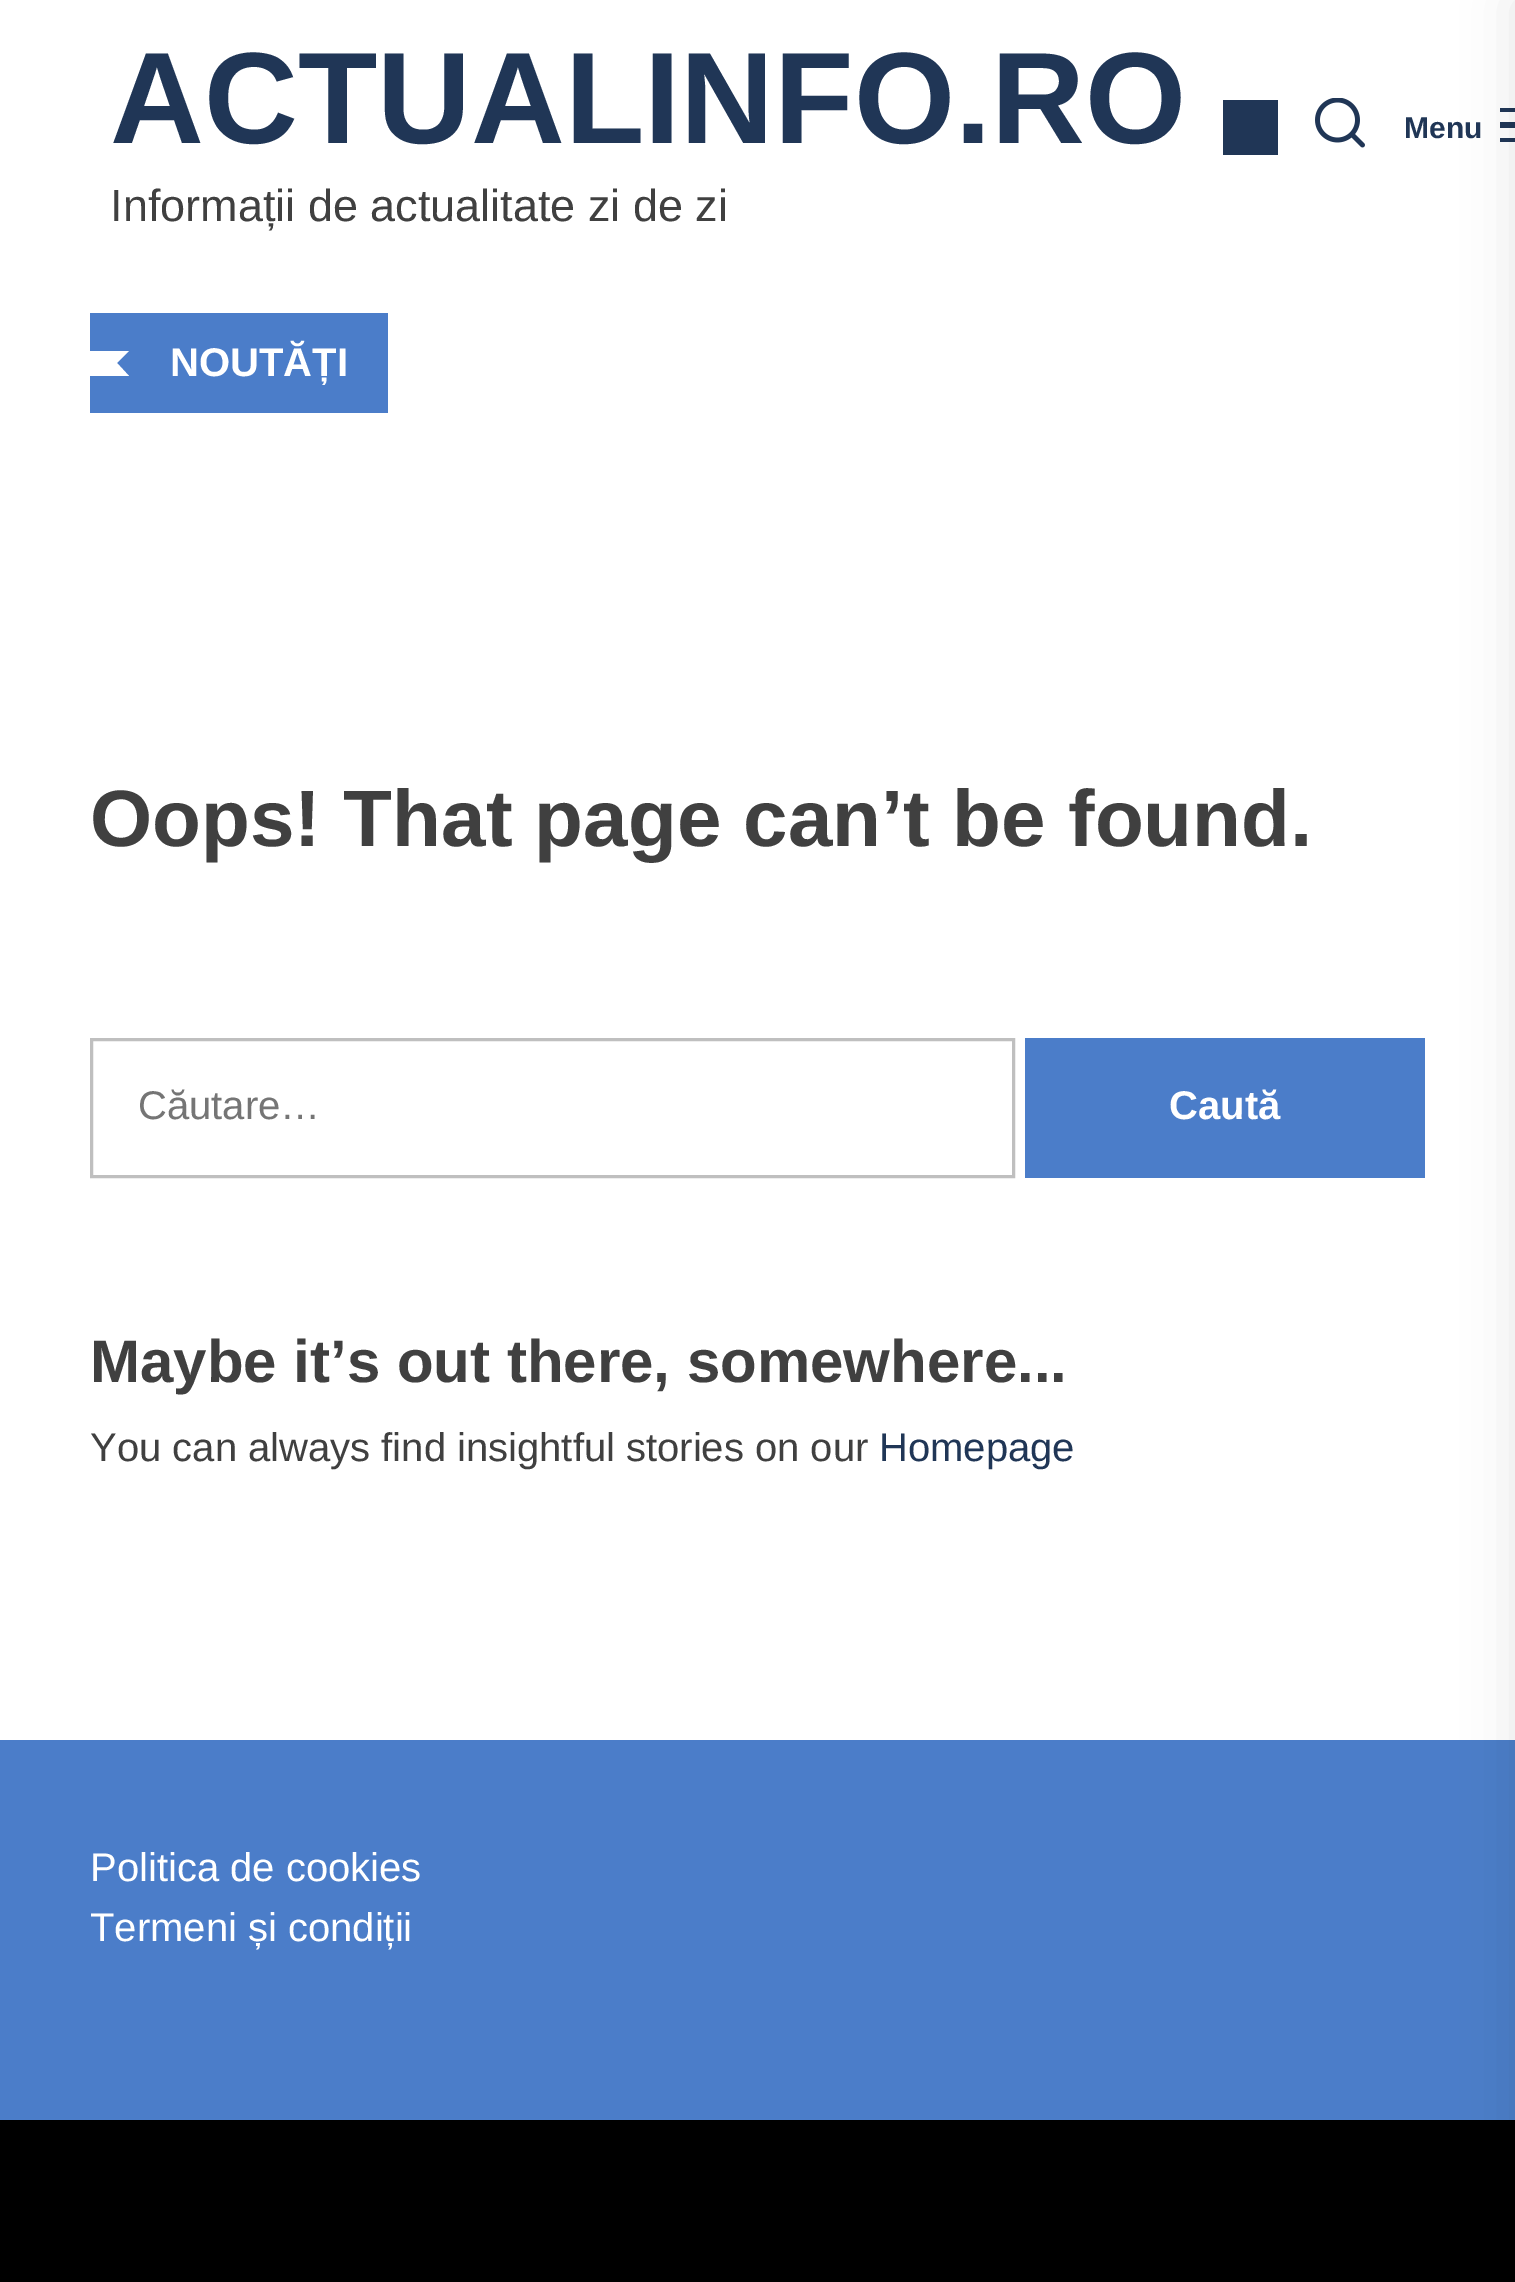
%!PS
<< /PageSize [1515 2282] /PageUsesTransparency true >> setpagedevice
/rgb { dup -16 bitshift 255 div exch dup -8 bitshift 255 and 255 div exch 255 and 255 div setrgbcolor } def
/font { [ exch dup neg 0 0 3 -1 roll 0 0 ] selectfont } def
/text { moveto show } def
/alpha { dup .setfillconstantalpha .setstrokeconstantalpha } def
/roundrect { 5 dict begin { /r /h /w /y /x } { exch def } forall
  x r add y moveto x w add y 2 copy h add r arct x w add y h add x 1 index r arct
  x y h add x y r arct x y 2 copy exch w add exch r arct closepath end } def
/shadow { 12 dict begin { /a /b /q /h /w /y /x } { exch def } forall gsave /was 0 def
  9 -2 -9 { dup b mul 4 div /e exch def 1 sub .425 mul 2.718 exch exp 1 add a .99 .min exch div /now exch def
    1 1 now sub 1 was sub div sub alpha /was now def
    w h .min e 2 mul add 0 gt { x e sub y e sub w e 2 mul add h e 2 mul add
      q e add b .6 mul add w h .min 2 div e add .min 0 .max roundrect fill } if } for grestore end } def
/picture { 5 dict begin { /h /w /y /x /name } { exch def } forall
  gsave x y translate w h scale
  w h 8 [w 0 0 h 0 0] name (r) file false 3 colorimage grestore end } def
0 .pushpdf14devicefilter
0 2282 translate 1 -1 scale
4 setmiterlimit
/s1 { /LiberationSans-Bold 130 font 16#203656 rgb } def
/s2 { /LiberationSans-Regular 45 font 16#404040 rgb } def
/s3 { /LiberationSans-Bold 30 font 16#203656 rgb } def
/s4 { /LiberationSans-Bold 40 font 16#FFFFFF rgb } def
/s5 { /LiberationSans-Bold 80 font 16#404040 rgb } def
/s6 { /LiberationSans-Regular 40 font 16#757575 rgb } def
/s7 { /LiberationSans-Bold 60 font 16#404040 rgb } def
/s8 { /LiberationSans-Regular 40 font 16#404040 rgb } def
/s9 { /LiberationSans-Regular 40 font 16#203656 rgb } def
/s10 { /LiberationSans-Regular 40 font 16#FFFFFF rgb } def
16#FFFFFF rgb
0 0 1515 2282 rectfill
16#203656 rgb
1500 108 moveto 1500 112 lineto 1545 112 lineto 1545 108 lineto closepath 1500 128 moveto 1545 128 lineto 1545 122 lineto 1500 122 lineto closepath 1500 142 moveto 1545 142 lineto 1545 138 lineto 1500 138 lineto closepath fill
16#4B7DC9 rgb
0 1740 1515 380 rectfill
16#000000 rgb
0 2120 1515 162 rectfill
1515 0 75 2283 0 25 0.1 shadow
s1
(ACTUALINFO.RO) 110 143 text
s2
(Informații de actualitate zi de zi) 110 221 text
16#203656 rgb
1223 100 55 55 rectfill
(pic1.raw) 1315 98 50 50 picture
s3
(Menu) 1404 138 text
16#4B7DC9 rgb
90 313 298 100 rectfill
16#FFFFFF rgb
90 376 moveto 90 351 lineto 129 351 lineto 117 363 lineto 129 376 lineto closepath fill
s4
(NOUTĂȚI) 170 376 text
s5
(Oops! That page can’t be found.) 90 846 text
16#BFBFBF rgb
3 setlinewidth
91.5 1039.5 922 137 rectstroke
s6
(Căutare…) 138 1119 text
16#4B7DC9 rgb
1025 1038 400 140 rectfill
s4
(Caută) 1169 1119 text
s7
(Maybe it’s out there, somewhere...) 90 1382 text
s8
(You can always find insightful stories on our) 90 1461 text
s9
(Homepage) 879 1461 text
s10
(Politica de cookies) 90 1881 text
(Termeni și condiții) 90 1941 text
.poppdf14devicefilter showpage
